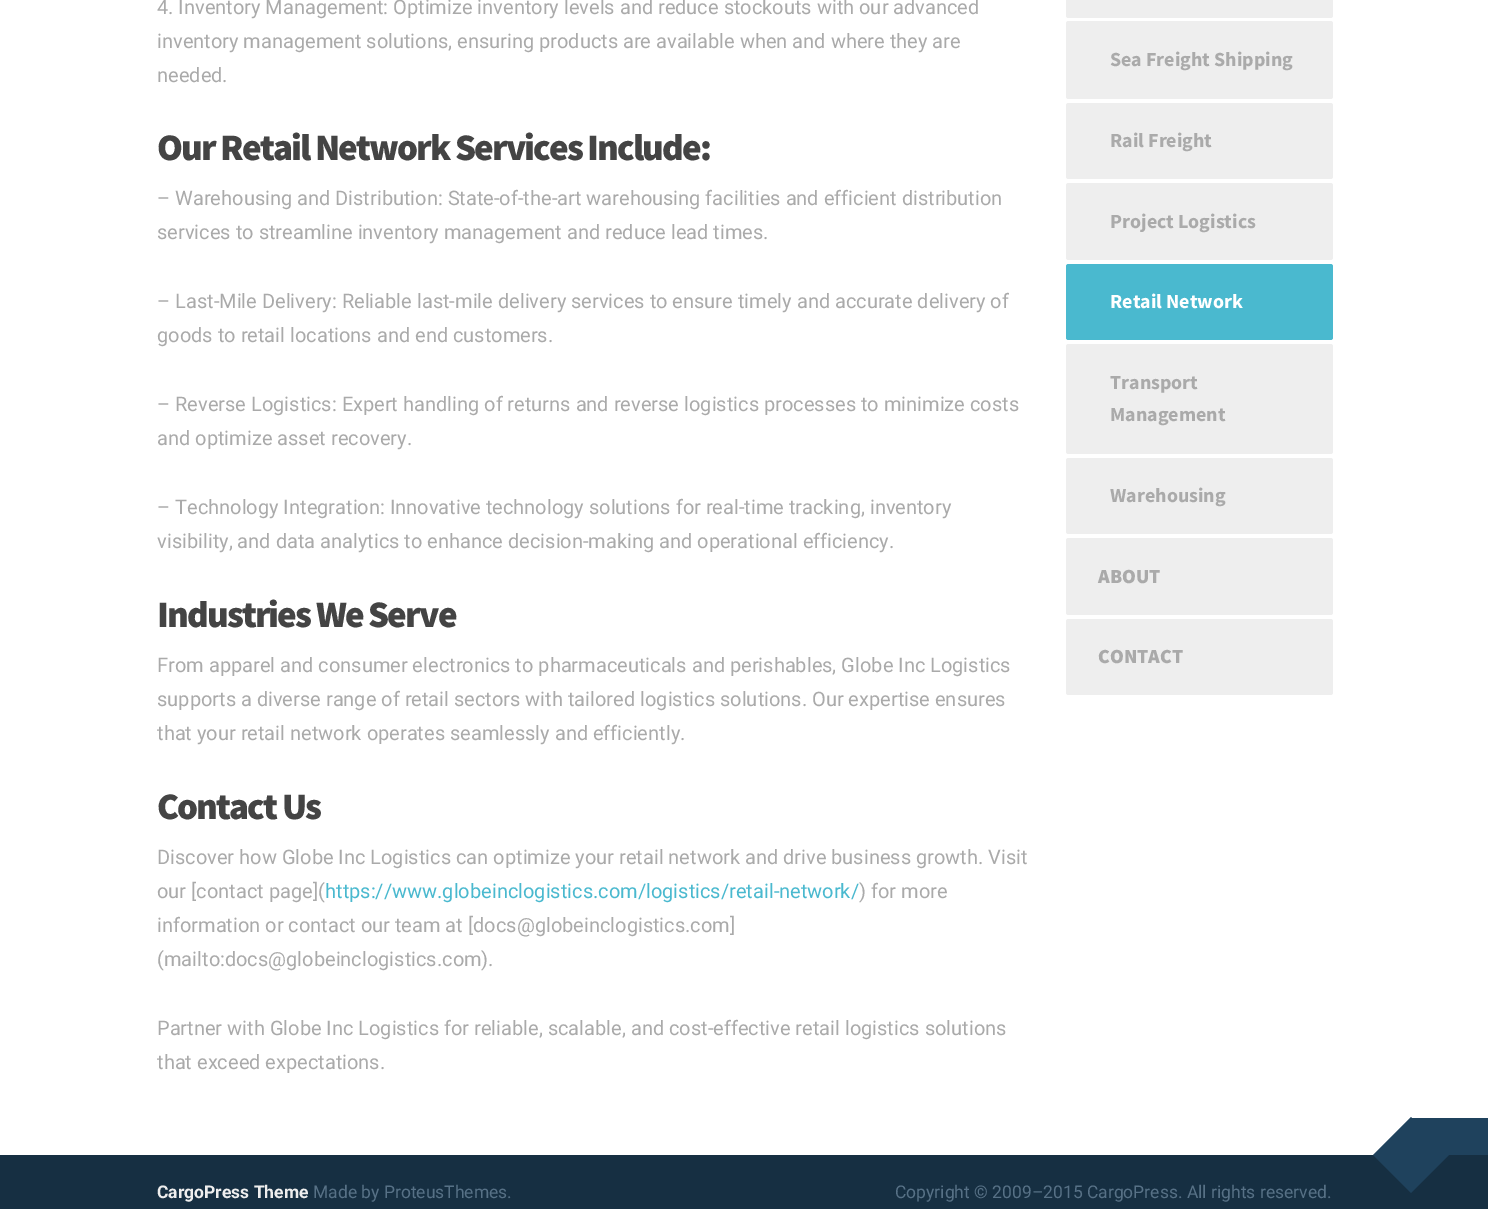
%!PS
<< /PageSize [1488 1209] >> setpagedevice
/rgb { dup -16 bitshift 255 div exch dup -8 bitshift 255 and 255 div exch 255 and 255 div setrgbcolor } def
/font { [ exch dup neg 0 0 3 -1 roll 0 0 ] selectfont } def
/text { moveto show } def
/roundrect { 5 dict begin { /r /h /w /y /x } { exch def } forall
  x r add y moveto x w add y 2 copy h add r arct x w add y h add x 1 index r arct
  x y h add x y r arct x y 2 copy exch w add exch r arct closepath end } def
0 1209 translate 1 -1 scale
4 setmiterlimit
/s1 { /Roboto-Regular 20 font 16#AAAAAA rgb } def
/s2 { /Roboto-Regular 20 font 16#4AB9CF rgb } def
/s3 { /SourceSansPro-Bold 20 font 16#AAAAAA rgb } def
/s4 { /SourceSansPro-Bold 20 font 16#FFFFFF rgb } def
/s5 { /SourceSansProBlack-Black 20 font 16#AAAAAA rgb } def
/s6 { /Roboto-Bold 17.5 font 16#EEEEEE rgb } def
/s7 { /Roboto-Regular 17.5 font 16#577186 rgb } def
16#FFFFFF rgb
0 0 1488 1209 rectfill
s1
(4. Inventory Management: Optimize inventory levels and reduce stockouts with our advanced) 157 14 text
(inventory management solutions, ensuring products are available when and where they are) 157 48 text
(needed.) 157 82 text
/SourceSansProBlack-Black 37.5 font
16#444444 rgb
157 160 moveto -1.9 0 (Our Retail Network Services Include:) ashow
s1
(– Warehousing and Distribution: State-of-the-art warehousing facilities and efficient distribution) 157 205 text
(services to streamline inventory management and reduce lead times.) 157 239 text
(– Last-Mile Delivery: Reliable last-mile delivery services to ensure timely and accurate delivery of) 157 308 text
(goods to retail locations and end customers.) 157 342 text
(– Reverse Logistics: Expert handling of returns and reverse logistics processes to minimize costs) 157 411 text
(and optimize asset recovery.) 157 445 text
(– Technology Integration: Innovative technology solutions for real-time tracking, inventory) 157 514 text
(visibility, and data analytics to enhance decision-making and operational efficiency.) 157 548 text
/SourceSansProBlack-Black 37.5 font
16#444444 rgb
157 627 moveto -1.9 0 (Industries We Serve) ashow
s1
(From apparel and consumer electronics to pharmaceuticals and perishables, Globe Inc Logistics) 157 672 text
(supports a diverse range of retail sectors with tailored logistics solutions. Our expertise ensures) 157 706 text
(that your retail network operates seamlessly and efficiently.) 157 740 text
/SourceSansProBlack-Black 37.5 font
16#444444 rgb
157 819 moveto -1.9 0 (Contact Us) ashow
s1
(Discover how Globe Inc Logistics can optimize your retail network and drive business growth. Visit) 157 864 text
(our [contact page]\() 157 898 text
s2
(https://www.globeinclogistics.com/logistics/retail-network/) 325 898 text
s1
(\) for more) 859 898 text
(information or contact our team at [docs@globeinclogistics.com]) 157 932 text
(\(mailto:docs@globeinclogistics.com\).) 157 966 text
(Partner with Globe Inc Logistics for reliable, scalable, and cost-effective retail logistics solutions) 157 1035 text
(that exceed expectations.) 157 1069 text
16#EEEEEE rgb
1066 -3 267 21 2.5 roundrect fill
1066 21 267 78 2.5 roundrect fill
s3
(Sea Freight Shipping) 1110 66 text
16#EEEEEE rgb
1066 103 267 76 2.5 roundrect fill
s3
(Rail Freight) 1110 147 text
16#EEEEEE rgb
1066 183 267 77 2.5 roundrect fill
s3
(Project Logistics) 1110 228 text
16#4AB9CF rgb
1066 264 267 76 2.5 roundrect fill
s4
(Retail Network) 1110 308 text
16#EEEEEE rgb
1066 344 267 110 2.5 roundrect fill
s3
(Transport) 1110 389 text
(Management) 1110 421 text
16#EEEEEE rgb
1066 458 267 76 2.5 roundrect fill
s3
(Warehousing) 1110 502 text
16#EEEEEE rgb
1066 538 267 77 2.5 roundrect fill
s5
(ABOUT) 1098 583 text
16#EEEEEE rgb
1066 619 267 76 2.5 roundrect fill
s5
(CONTACT) 1098 663 text
16#162F42 rgb
0 1155 1488 54 rectfill
16#1F425D rgb
1449 1155 moveto 1411 1193 lineto 1373 1155 lineto 1411 1117 lineto closepath fill
1412 1118 76 37 rectfill
s6
(CargoPress Theme) 157 1198 text
s7
(Made by ProteusThemes.) 313 1198 text
(Copyright © 2009–2015 CargoPress. All rights reserved.) 895 1198 text
showpage
